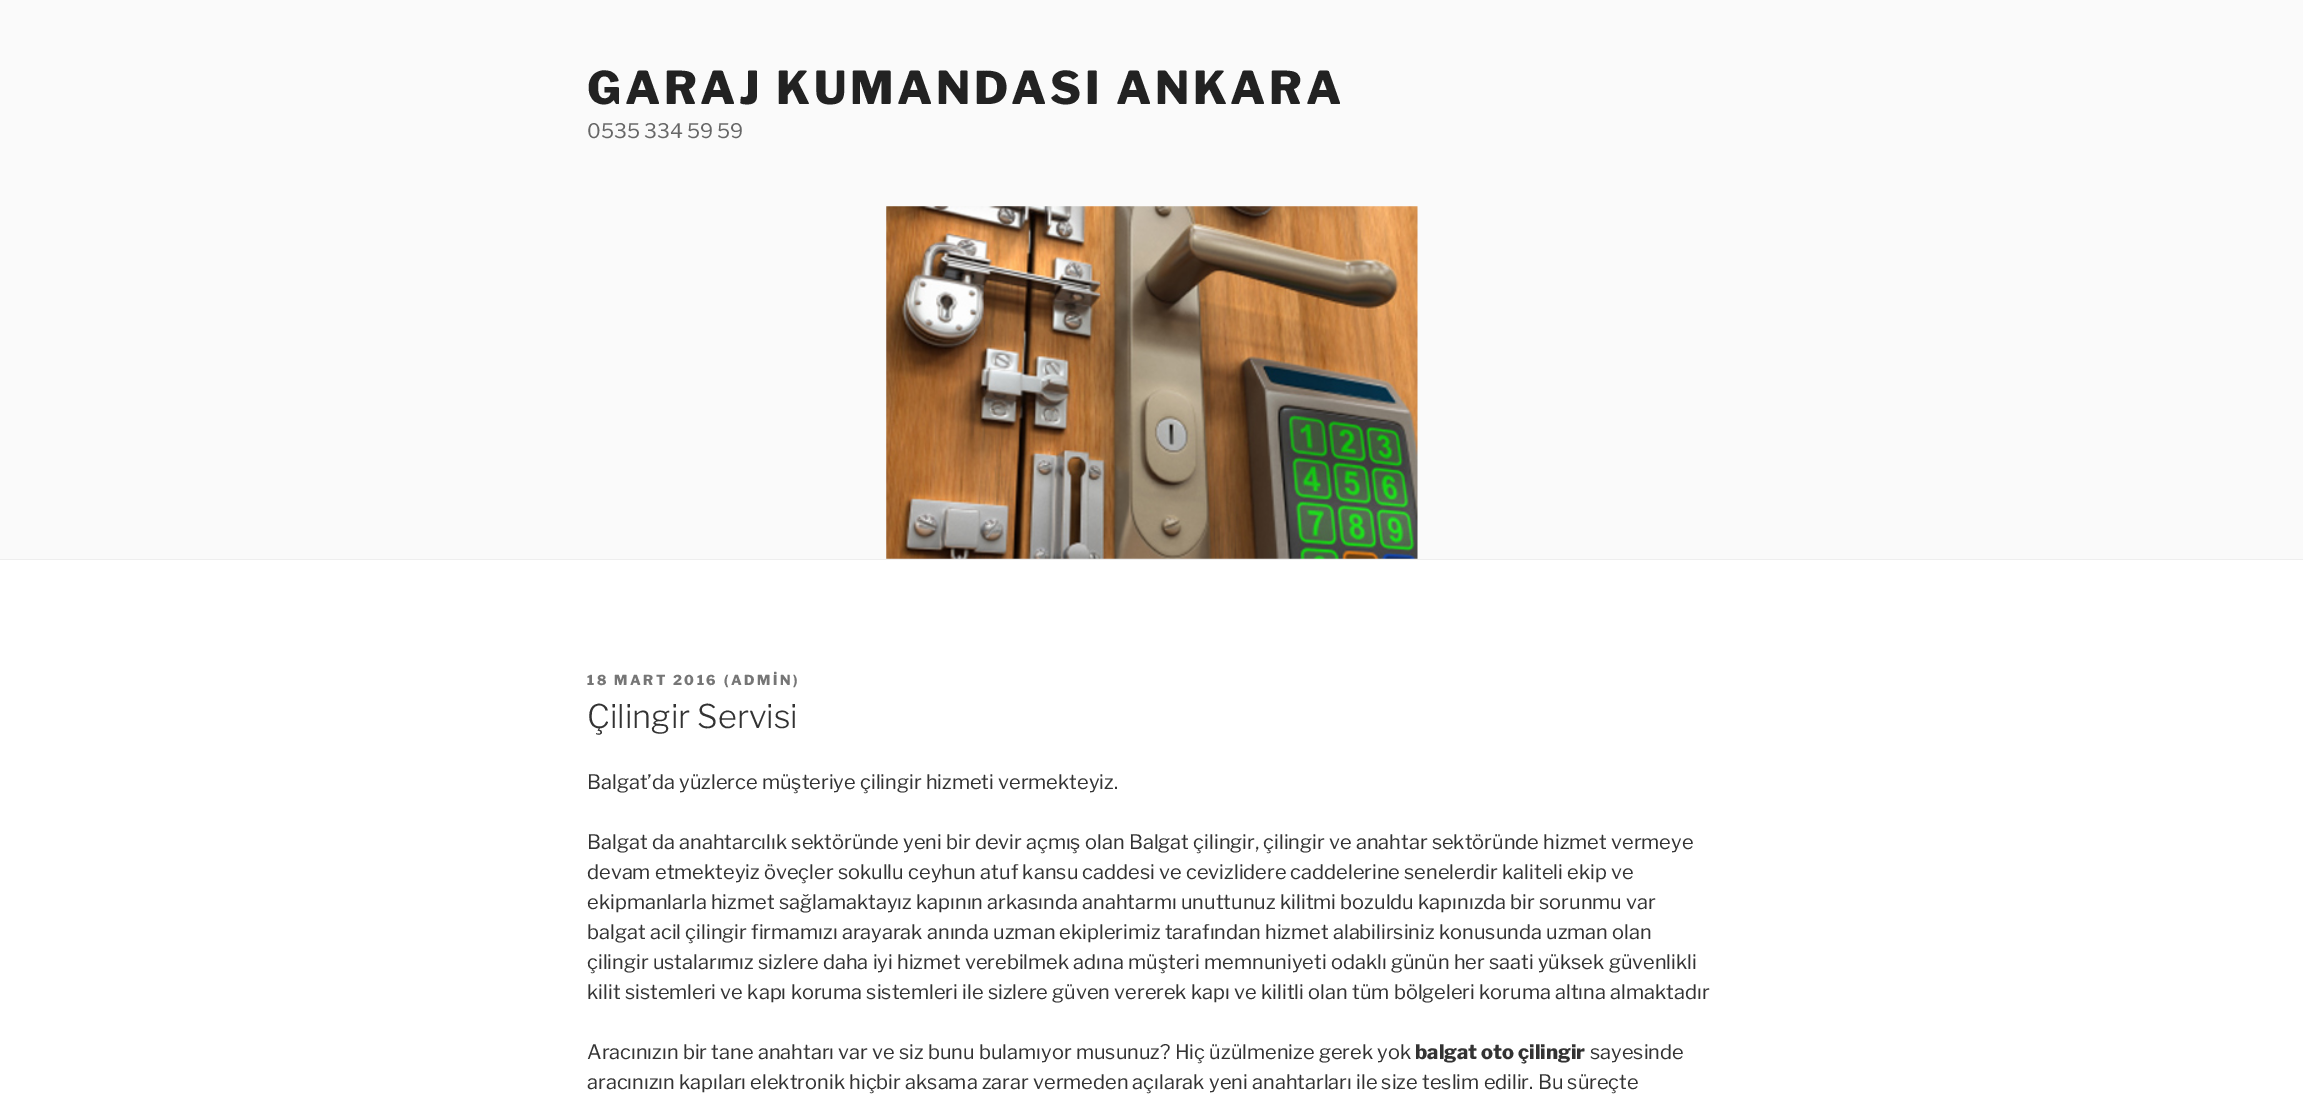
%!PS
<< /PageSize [2303 1114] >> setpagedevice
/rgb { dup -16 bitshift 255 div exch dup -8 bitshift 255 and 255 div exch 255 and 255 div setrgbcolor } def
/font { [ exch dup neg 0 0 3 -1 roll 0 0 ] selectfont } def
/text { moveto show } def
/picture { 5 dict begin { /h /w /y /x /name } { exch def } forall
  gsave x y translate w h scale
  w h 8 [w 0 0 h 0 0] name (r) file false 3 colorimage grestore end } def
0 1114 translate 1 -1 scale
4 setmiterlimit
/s1 { /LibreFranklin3-Thin 20 font 16#666666 rgb } def
/s2 { /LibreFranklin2-Thin 32.5 font 16#333333 rgb } def
/s3 { /LibreFranklin3-Thin 20 font 16#333333 rgb } def
/s4 { /LibreFranklin-Thin 20 font 16#333333 rgb } def
16#FFFFFF rgb
0 0 2303 1114 rectfill
16#FAFAFA rgb
0 0 2303 559 rectfill
16#EEEEEE rgb
0 559 2303 1 rectfill
(pic1.raw) 886 206 532 353 picture
/LibreFranklin-Thin 45 font
16#222222 rgb
587 104 moveto 3.6 0 (GARAJ KUMANDASI ANKARA) ashow
s1
(0535 334 59 59) 587 138 text
/LibreFranklin-Thin 13.75 font
16#767676 rgb
587 685 moveto 2.5 0 (18 MART 2016 \(ADMİN\)) ashow
s2
(Çilingir Servisi) 587 728 text
s3
(Balgat’da yüzlerce müşteriye çilingir hizmeti vermekteyiz.) 587 789 text
(Balgat da anahtarcılık sektöründe yeni bir devir açmış olan Balgat çilingir, çilingir ve anahtar sektöründe hizmet vermeye) 587 849 text
(devam etmekteyiz öveçler sokullu ceyhun atuf kansu caddesi ve cevizlidere caddelerine senelerdir kaliteli ekip ve) 587 879 text
(ekipmanlarla hizmet sağlamaktayız kapının arkasında anahtarmı unuttunuz kilitmi bozuldu kapınızda bir sorunmu var) 587 909 text
(balgat acil çilingir firmamızı arayarak anında uzman ekiplerimiz tarafından hizmet alabilirsiniz konusunda uzman olan) 587 939 text
(çilingir ustalarımız sizlere daha iyi hizmet verebilmek adına müşteri memnuniyeti odaklı günün her saati yüksek güvenlikli) 587 969 text
(kilit sistemleri ve kapı koruma sistemleri ile sizlere güven vererek kapı ve kilitli olan tüm bölgeleri koruma altına almaktadır) 587 999 text
(Aracınızın bir tane anahtarı var ve siz bunu bulamıyor musunuz? Hiç üzülmenize gerek yok) 587 1059 text
s4
(balgat oto çilingir) 1415 1059 text
s3
(sayesinde) 1590 1059 text
(aracınızın kapıları elektronik hiçbir aksama zarar vermeden açılarak yeni anahtarları ile size teslim edilir. Bu süreçte) 587 1089 text
showpage
